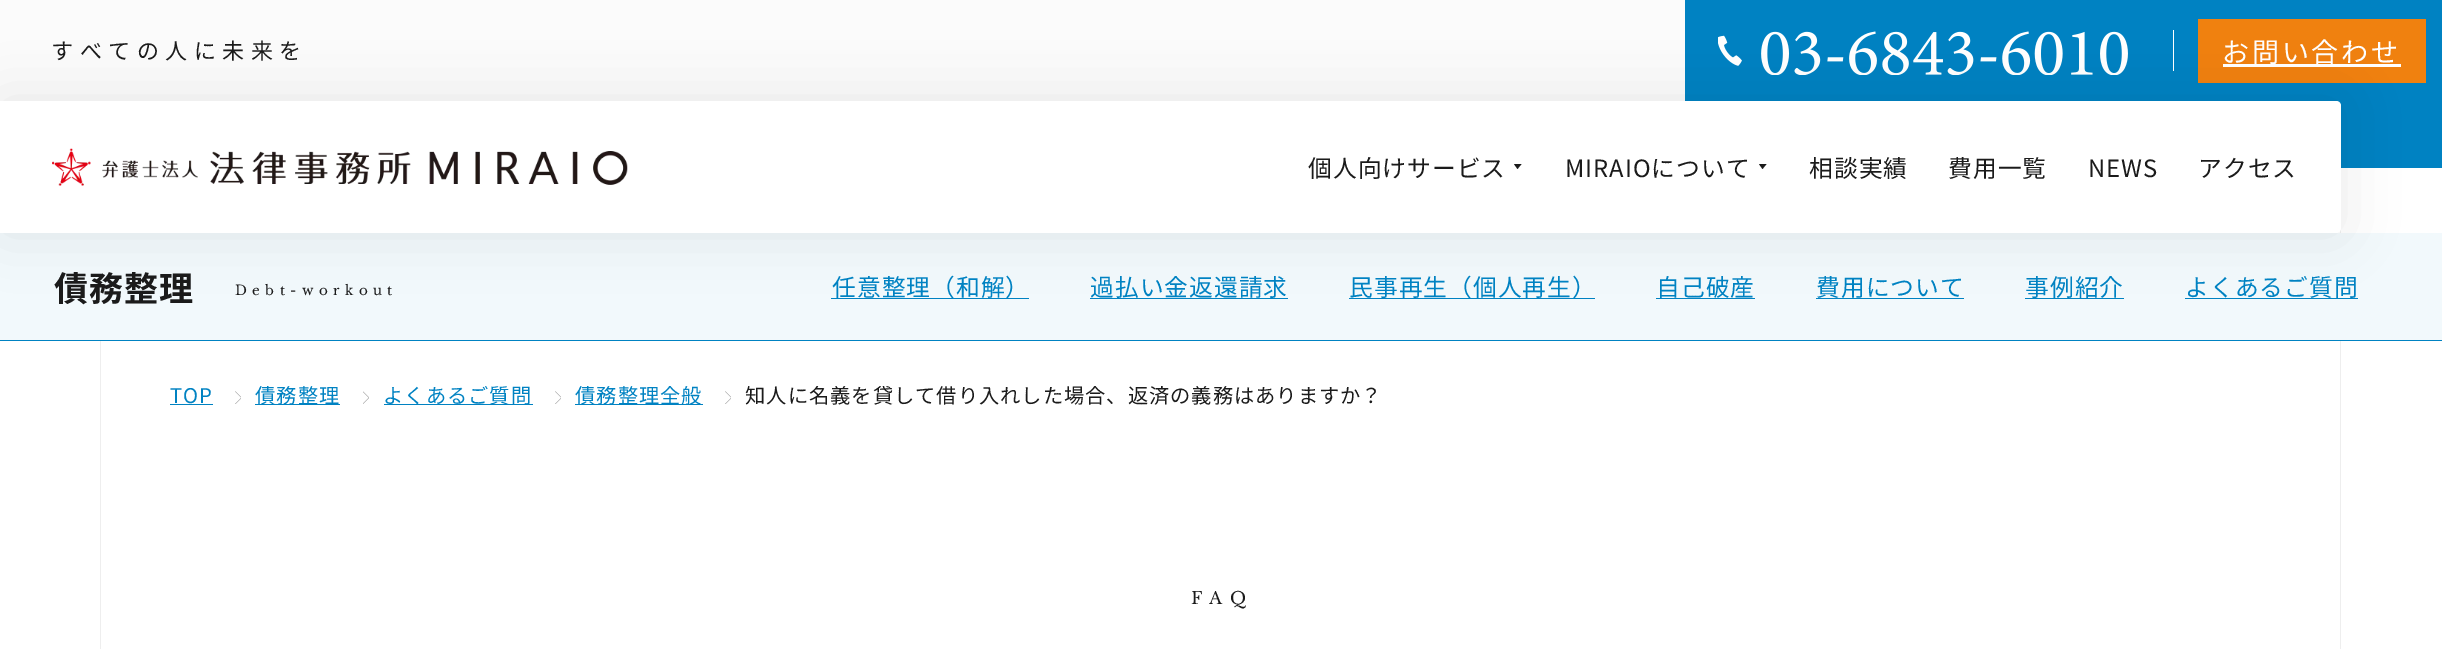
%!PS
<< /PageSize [2442 649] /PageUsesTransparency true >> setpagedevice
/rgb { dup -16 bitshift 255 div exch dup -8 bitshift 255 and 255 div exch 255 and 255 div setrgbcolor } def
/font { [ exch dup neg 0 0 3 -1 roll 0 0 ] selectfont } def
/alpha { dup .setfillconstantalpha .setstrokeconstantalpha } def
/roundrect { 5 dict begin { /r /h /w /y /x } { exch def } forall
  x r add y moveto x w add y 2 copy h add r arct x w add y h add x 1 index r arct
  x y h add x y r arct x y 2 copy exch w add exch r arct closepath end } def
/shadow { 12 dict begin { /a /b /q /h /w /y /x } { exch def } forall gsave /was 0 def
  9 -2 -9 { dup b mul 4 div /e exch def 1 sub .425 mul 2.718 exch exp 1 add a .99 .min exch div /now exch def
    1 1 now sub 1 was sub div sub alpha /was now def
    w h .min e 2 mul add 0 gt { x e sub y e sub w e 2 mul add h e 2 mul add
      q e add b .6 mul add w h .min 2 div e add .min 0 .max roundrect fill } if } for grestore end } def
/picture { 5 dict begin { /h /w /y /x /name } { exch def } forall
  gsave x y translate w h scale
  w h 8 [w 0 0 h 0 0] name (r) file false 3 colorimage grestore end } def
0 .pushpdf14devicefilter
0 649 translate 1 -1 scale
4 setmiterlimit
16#FFFFFF rgb
0 0 2442 649 rectfill
16#FBFBFB rgb
0 0 1685 101 rectfill
/NotoSansJP-Regular 22 font
16#1B1B1B rgb
51 59 moveto 6.5 0 (すべての人に未来を) ashow
16#0082C2 rgb
1685 0 757 101 rectfill
(pic1.raw) 1718 35 24 31 picture
(pic2.raw) 1761 31 367 44 picture
16#FFFFFF rgb
2173 30 1 41 rectfill
16#F0810F rgb
2198 19 228 64 rectfill
16#FFFFFF rgb
2223 64 178 3 rectfill
/NotoSansJP-Regular 27 font
2222 62 moveto 2.75 0 (お問い合わせ) ashow
16#0082C2 rgb
2336 101 106 67 rectfill
16#EEEEEE rgb
2340 228 1 421 rectfill
16#F2F9FC rgb
0 233 2442 107 rectfill
16#0082C2 rgb
831 298 198 1 rectfill
1090 298 198 1 rectfill
1349 298 246 1 rectfill
1656 298 99 1 rectfill
1816 298 148 1 rectfill
2025 298 99 1 rectfill
2185 298 173 1 rectfill
16#000000 rgb
0 101 2341 132 5 27 0.08 shadow
16#FFFFFF rgb
0 101 moveto 2336 101 lineto 2339 101 2341 103 2341 106 curveto 2341 228 lineto 2341 231 2339 233 2336 233 curveto 0 233 lineto closepath fill
(pic3.raw) 52 148 576 38 picture
/NotoSansJP-Regular 23.75 font
16#1B1B1B rgb
1308 177 moveto 1 0 (個人向けサービス) ashow
1517.5 169 moveto 1514 164 lineto 1521.5 164 lineto closepath eofill
1565 177 moveto 1 0 (MIRAIOについて) ashow
1762.5 169 moveto 1759 164 lineto 1766.5 164 lineto closepath eofill
1809 177 moveto 1 0 (相談実績) ashow
1948 177 moveto 1 0 (費用一覧) ashow
2088 177 moveto 1 0 (NEWS) ashow
2198 177 moveto 1 0 (アクセス) ashow
16#EEEEEE rgb
100 341 1 308 rectfill
16#0082C2 rgb
0 340 2442 1 rectfill
/NotoSansJP-Bold 34 font
16#1B1B1B rgb
54 301 moveto 1 0 (債務整理) ashow
/LibreBaskerville-Regular 13.5 font
235 295 moveto 5.4 0 (Debt-workout) ashow
/NotoSansJP-Regular 23.75 font
16#0082C2 rgb
832 296 moveto 1 0 (任意整理（和解）) ashow
1090 296 moveto 1 0 (過払い金返還請求) ashow
1349 296 moveto 1 0 (民事再生（個人再生）) ashow
1656 296 moveto 1 0 (自己破産) ashow
1816 296 moveto 1 0 (費用について) ashow
2025 296 moveto 1 0 (事例紹介) ashow
2185 296 moveto 1 0 (よくあるご質問) ashow
/NotoSansJP-Regular 20.25 font
170 403 moveto 1 0 (TOP) ashow
170 404 43 1 rectfill
(pic4.raw) 235 391 6 13 picture
255 404 85 1 rectfill
255 403 moveto 1 0 (債務整理) ashow
(pic5.raw) 363 391 6 13 picture
384 404 149 1 rectfill
383 403 moveto 1 0 (よくあるご質問) ashow
(pic4.raw) 555 391 6 13 picture
575 404 128 1 rectfill
575 403 moveto 1 0 (債務整理全般) ashow
(pic4.raw) 725 391 6 13 picture
16#1B1B1B rgb
745 403 moveto 1 0 (知人に名義を貸して借り入れした場合、返済の義務はありますか？) ashow
/LibreBaskerville-Regular 17 font
1191 604 moveto 7 0 (FAQ) ashow
.poppdf14devicefilter showpage
